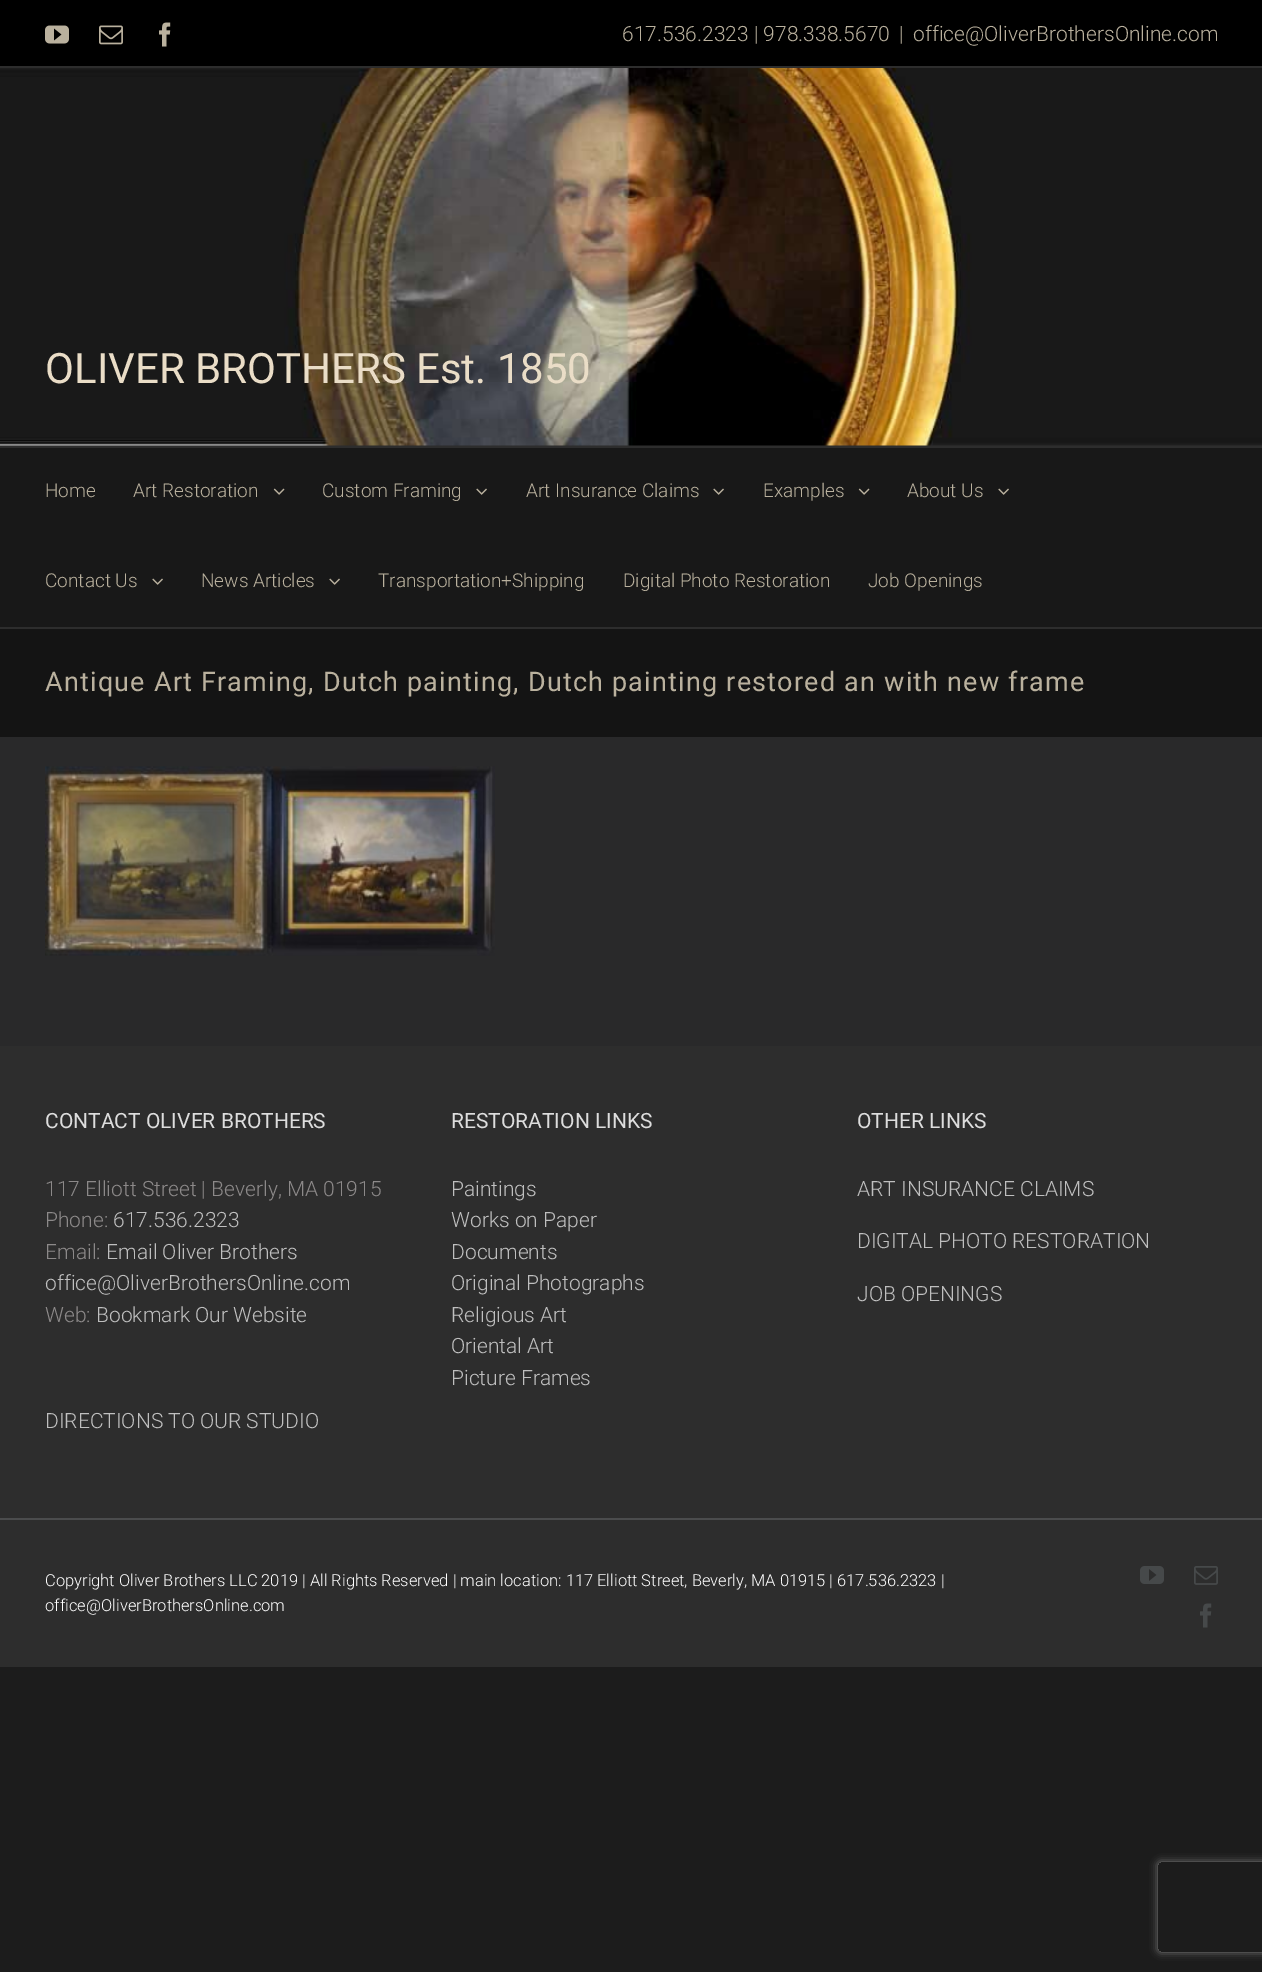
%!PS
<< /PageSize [1262 1972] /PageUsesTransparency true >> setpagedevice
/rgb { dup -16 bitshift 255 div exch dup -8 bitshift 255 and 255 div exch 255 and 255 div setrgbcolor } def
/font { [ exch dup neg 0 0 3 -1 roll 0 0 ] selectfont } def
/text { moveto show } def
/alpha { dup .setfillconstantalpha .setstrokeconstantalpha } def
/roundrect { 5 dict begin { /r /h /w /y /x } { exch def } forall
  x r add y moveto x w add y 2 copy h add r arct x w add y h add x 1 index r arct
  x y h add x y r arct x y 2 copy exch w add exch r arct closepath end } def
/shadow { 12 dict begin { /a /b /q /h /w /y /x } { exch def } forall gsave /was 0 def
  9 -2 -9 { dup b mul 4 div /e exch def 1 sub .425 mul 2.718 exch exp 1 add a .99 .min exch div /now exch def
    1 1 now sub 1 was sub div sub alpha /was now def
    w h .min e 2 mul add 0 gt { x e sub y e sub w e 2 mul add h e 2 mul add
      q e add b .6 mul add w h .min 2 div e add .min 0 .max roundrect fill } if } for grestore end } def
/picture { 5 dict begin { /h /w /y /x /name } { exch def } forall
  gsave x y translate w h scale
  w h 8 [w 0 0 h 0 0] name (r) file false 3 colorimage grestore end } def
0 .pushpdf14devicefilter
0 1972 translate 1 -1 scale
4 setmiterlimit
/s1 { /Roboto-Light 21 font 16#BAB19E rgb } def
/s2 { /Roboto-Regular 42 font 16#EADDC7 rgb } def
/s3 { /Roboto-Light 19 font 16#BAB19E rgb } def
/s4 { /Roboto-Regular 21 font 16#DDDDDD rgb } def
/s5 { /Roboto-Light 21 font 16#8C8989 rgb } def
/s6 { /Roboto-Light 21 font 16#BFBFBF rgb } def
/s7 { /Roboto-Light 16.5 font 16#FFFFFF rgb } def
16#1C1C1C rgb
0 0 1262 1972 rectfill
16#000000 rgb
0 0 1262 66 rectfill
16#2D2D2D rgb
0 66 1262 2 rectfill
(pic1.raw) 45 25 24 19 picture
(pic2.raw) 99 25 24 20 picture
(pic3.raw) 159 22 12 25 picture
s1
(617.536.2323 | 978.338.5670) 622 41 text
(|) 899 41 text
(office@OliverBrothersOnline.com) 913 41 text
16#2D2D2D rgb
0 445 1262 3 rectfill
(pic4.raw) 0 68 1262 378 picture
s2
(OLIVER BROTHERS Est. 1850) 45 383 text
16#181818 rgb
0 448 1262 179 rectfill
16#2D2D2D rgb
0 627 1262 2 rectfill
s3
(Home) 45 497 text
(Art Restoration) 133 497 text
(pic5.raw) 273 488 12 7 picture
(Custom Framing) 322 497 text
(pic6.raw) 476 488 11 7 picture
(Art Insurance Claims) 526 497 text
(pic6.raw) 713 488 11 7 picture
(Examples) 763 497 text
(pic5.raw) 858 488 12 7 picture
(About Us) 907 497 text
(pic6.raw) 998 488 11 7 picture
(Contact Us) 45 587 text
(pic6.raw) 152 578 11 7 picture
(News Articles) 201 587 text
(pic6.raw) 329 578 11 7 picture
(Transportation+Shipping) 378 587 text
(Digital Photo Restoration) 623 587 text
(Job Openings) 868 587 text
16#141414 rgb
0 629 1262 108 rectfill
/Roboto-Regular 27 font
16#BAB19E rgb
45 691 moveto 1.2 0 (Antique Art Framing, Dutch painting, Dutch painting restored an with new frame) ashow
16#29292A rgb
0 737 1262 309 rectfill
(pic7.raw) 45 766 450 190 picture
16#2D2D2D rgb
0 1046 1262 472 rectfill
s4
(CONTACT OLIVER BROTHERS) 45 1128 text
s5
(117 Elliott Street | Beverly, MA 01915) 45 1196 text
(Phone:) 45 1227 text
s6
(617.536.2323) 113 1227 text
s5
(Email:) 45 1259 text
s6
(Email Oliver Brothers) 106 1259 text
(office@OliverBrothersOnline.com) 45 1290 text
s5
(Web:) 45 1322 text
s6
(Bookmark Our Website) 96 1322 text
(DIRECTIONS TO OUR STUDIO) 45 1428 text
s4
(RESTORATION LINKS) 451 1128 text
s6
(Paintings) 451 1196 text
(Works on Paper) 451 1227 text
(Documents) 451 1259 text
(Original Photographs) 451 1290 text
(Religious Art) 451 1322 text
(Oriental Art) 451 1353 text
(Picture Frames) 451 1385 text
s4
(OTHER LINKS) 857 1128 text
s6
(ART INSURANCE CLAIMS) 857 1196 text
(DIGITAL PHOTO RESTORATION) 857 1248 text
(JOB OPENINGS) 857 1301 text
16#2D2D2D rgb
0 1520 1262 147 rectfill
16#4B4C4D rgb
0 1518 1262 2 rectfill
s7
(Copyright Oliver Brothers LLC 2019 | All Rights Reserved | main location: 117 Elliott Street, Beverly, MA 01915 | 617.536.2323 |) 45 1586 text
(office@OliverBrothersOnline.com) 45 1611 text
(pic8.raw) 1140 1566 24 18 picture
(pic9.raw) 1194 1566 24 19 picture
(pic10.raw) 1200 1603 12 25 picture
gsave
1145 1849 moveto 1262 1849 lineto 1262 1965 lineto 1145 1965 lineto closepath 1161 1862 moveto 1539 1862 lineto 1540.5 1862 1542 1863.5 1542 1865 curveto 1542 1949 lineto 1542 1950.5 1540.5 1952 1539 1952 curveto 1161 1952 lineto 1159.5 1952 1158 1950.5 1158 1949 curveto 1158 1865 lineto 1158 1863.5 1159.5 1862 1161 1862 curveto closepath eoclip newpath
16#808080 rgb
1158 1862 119 90 3 4 1 shadow
grestore
.poppdf14devicefilter showpage
